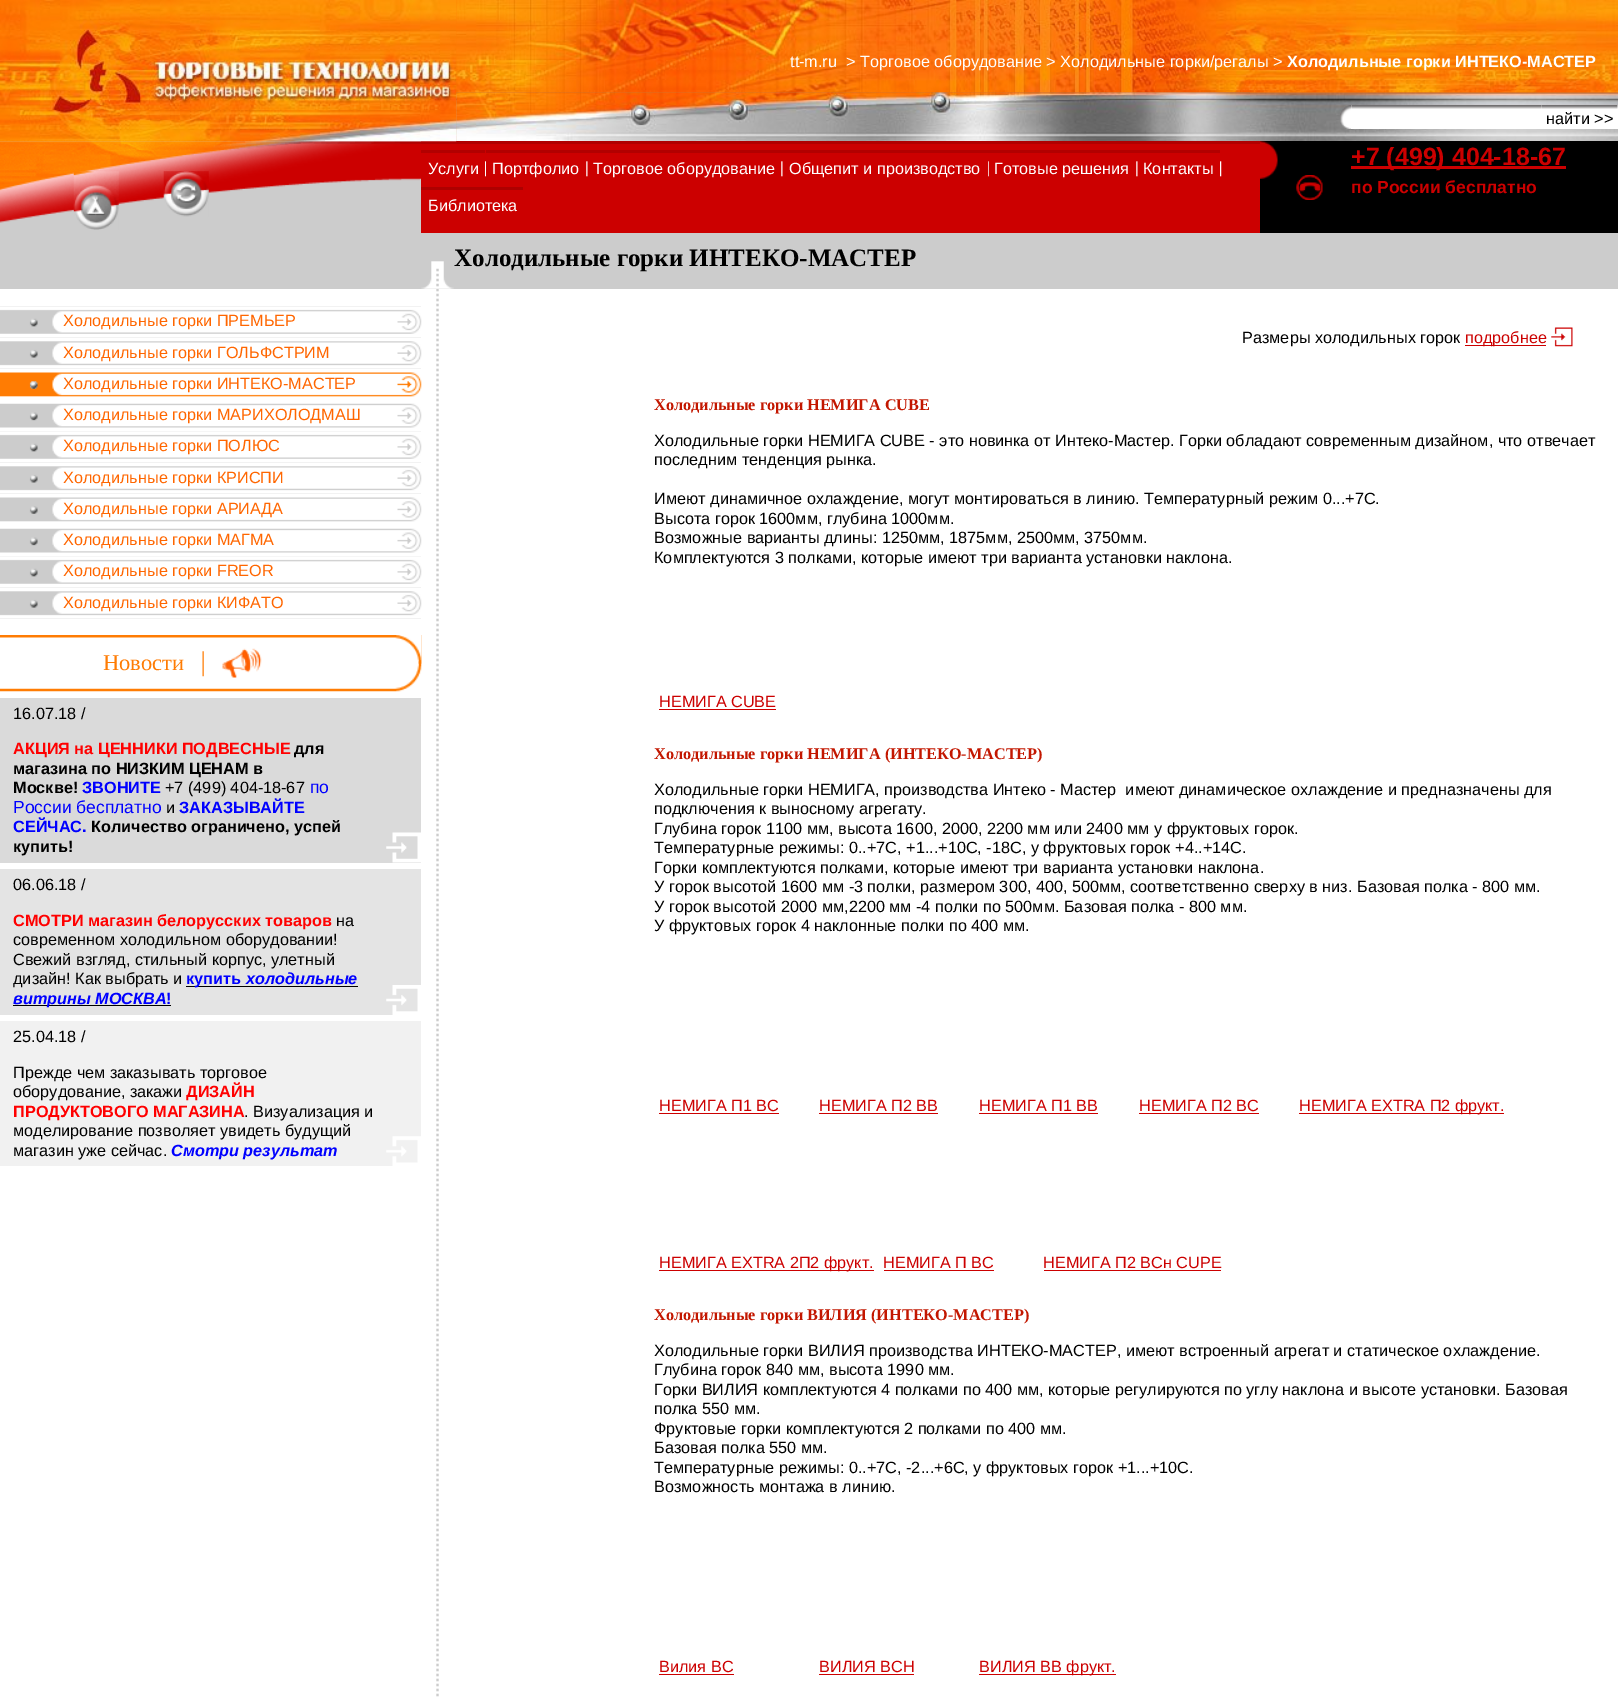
%!PS
<< /PageSize [1618 1698] >> setpagedevice
/rgb { dup -16 bitshift 255 div exch dup -8 bitshift 255 and 255 div exch 255 and 255 div setrgbcolor } def
/font { [ exch dup neg 0 0 3 -1 roll 0 0 ] selectfont } def
/text { moveto show } def
/picture { 5 dict begin { /h /w /y /x /name } { exch def } forall
  gsave x y translate w h scale
  w h 8 [w 0 0 h 0 0] name (r) file false 3 colorimage grestore end } def
0 1698 translate 1 -1 scale
4 setmiterlimit
/s1 { /LiberationSans-Regular 16.25 font 16#FFFFFF rgb } def
/s2 { /LiberationSans-Bold 16.25 font 16#FFFFFF rgb } def
/s3 { /LiberationSans-Regular 16.25 font 16#000000 rgb } def
/s4 { /LiberationSans-Bold 25 font 16#CC0000 rgb } def
/s5 { /LiberationSans-Bold 17.5 font 16#CC0000 rgb } def
/s6 { /LiberationSerif-Bold 25 font 16#000000 rgb } def
/s7 { /LiberationSans-Regular 16.25 font 16#FF6600 rgb } def
/s8 { /LiberationSerif-Regular 22.5 font 16#FF7C03 rgb } def
/s9 { /LiberationSans-Bold 16.25 font 16#FF0000 rgb } def
/s10 { /LiberationSans-Bold 16.25 font 16#000000 rgb } def
/s11 { /LiberationSans-Bold 16.25 font 16#0000FF rgb } def
/s12 { /LiberationSans-Regular 17.5 font 16#0000FF rgb } def
/s13 { /LiberationSans-BoldItalic 16.25 font 16#0000FF rgb } def
/s14 { /LiberationSans-Regular 16.25 font 16#CC0000 rgb } def
/s15 { /LiberationSerif-Bold 16.25 font 16#C31700 rgb } def
16#FFFFFF rgb
0 0 1618 1698 rectfill
(pic2.raw) 456 0 1162 93 picture
(pic3.raw) 456 92 1162 49 picture
(pic4.raw) 456 92 794 49 picture
16#CCCCCC rgb
0 141 421 148 rectfill
(pic8.raw) 0 141 421 89 picture
16#B00000 rgb
421 141 839 3 rectfill
(pic1.raw) 0 0 457 142 picture
s1
(tt-m.ru) 790 67 text
(> Торговое оборудование > Холодильные горки/регалы >) 846 67 text
s2
(Холодильные горки ИНТЕКО-МАСТЕР) 1287 67 text
(pic5.raw) 1340 105 11 24 picture
1351 105 267 24 rectfill
(pic6.raw) 1351 105 190 4 picture
(pic7.raw) 1541 105 77 4 picture
s3
(найти >>) 1546 124 text
(pic9.raw) 73 171 46 59 picture
(pic10.raw) 163 171 46 46 picture
1260 141 358 92 rectfill
(pic11.raw) 1260 141 18 38 picture
16#CC0000 rgb
421 144 839 89 rectfill
16#B20000 rgb
421 150 64 3 rectfill
s1
(Услуги) 428 174 text
(pic12.raw) 485 161 1 16 picture
16#B20000 rgb
486 150 734 3 rectfill
s1
(Портфолио) 492 174 text
(pic13.raw) 586 161 2 16 picture
(Торговое оборудование) 593 174 text
(pic13.raw) 781 161 2 16 picture
(Общепит и производство) 789 174 text
(pic14.raw) 988 161 1 16 picture
(Готовые решения) 994 174 text
(pic13.raw) 1136 161 2 16 picture
(Контакты) 1143 174 text
(pic15.raw) 1220 161 2 16 picture
16#AE0000 rgb
421 187 102 3 rectfill
s1
(Библиотека) 428 211 text
(pic16.raw) 1296 175 27 25 picture
16#CC0000 rgb
1351 166 215 3 rectfill
s4
(+7 \(499\) 404-18-67) 1351 165 text
s5
(по России бесплатно) 1351 193 text
16#CCCCCC rgb
421 233 1197 56 rectfill
(pic17.raw) 421 261 33 28 picture
s6
(Холодильные горки ИНТЕКО-МАСТЕР) 454 266 text
(pic18.raw) 0 306 422 32 picture
s7
(Холодильные горки ПРЕМЬЕР) 63 326 text
(pic19.raw) 0 337 422 32 picture
(Холодильные горки ГОЛЬФСТРИМ) 63 358 text
(pic20.raw) 0 369 422 31 picture
(Холодильные горки ИНТЕКО-МАСТЕР) 63 389 text
(pic21.raw) 0 400 422 32 picture
(Холодильные горки МАРИХОЛОДМАШ) 63 420 text
(pic22.raw) 0 431 422 32 picture
(Холодильные горки ПОЛЮС) 63 451 text
(pic19.raw) 0 462 422 32 picture
(Холодильные горки КРИСПИ) 63 483 text
(pic23.raw) 0 494 422 31 picture
(Холодильные горки АРИАДА) 63 514 text
(pic21.raw) 0 525 422 32 picture
(Холодильные горки МАГМА) 63 545 text
(pic22.raw) 0 556 422 32 picture
(Холодильные горки FREOR) 63 576 text
(pic24.raw) 0 587 422 32 picture
(Холодильные горки КИФАТО) 63 608 text
(pic25.raw) 0 635 422 57 picture
(pic26.raw) 0 635 422 29 picture
s8
(Новости) 103 670 text
(pic27.raw) 202 651 2 26 picture
(pic28.raw) 222 648 40 30 picture
16#DADADA rgb
0 698 421 165 rectfill
s3
(16.07.18 /) 13 719 text
s9
(АКЦИЯ на ЦЕННИКИ ПОДВЕСНЫЕ) 13 754 text
s10
(для) 294 754 text
(магазина по НИЗКИМ ЦЕНАМ в) 13 774 text
(Москве!) 13 793 text
s11
(ЗВОНИТЕ) 82 793 text
s3
(+7 \(499\) 404-18-67) 165 793 text
s12
(по) 310 793 text
(России бесплатно) 13 813 text
s3
(и) 166 813 text
s11
(ЗАКАЗЫВАЙТЕ) 179 813 text
(СЕЙЧАС.) 13 832 text
s10
(Количество ограничено, успей) 91 832 text
(купить!) 13 852 text
(pic29.raw) 386 832 35 31 picture
16#E4E4E4 rgb
0 869 421 146 rectfill
s3
(06.06.18 /) 13 890 text
s9
(СМОТРИ магазин белорусских товаров) 13 926 text
s3
(на) 336 926 text
(современном холодильном оборудовании!) 13 945 text
(Свежий взгляд, стильный корпус, улетный) 13 965 text
(дизайн! Как выбрать и) 13 984 text
186 986 172 1 rectfill
s11
(купить) 186 984 text
s13
(холодильные) 246 984 text
16#000000 rgb
13 1005 158 1 rectfill
s13
(витрины МОСКВА) 13 1004 text
s11
(!) 166 1004 text
(pic30.raw) 386 985 35 30 picture
16#F1F1F1 rgb
0 1021 421 145 rectfill
s3
(25.04.18 /) 13 1042 text
(Прежде чем заказывать торговое) 13 1078 text
(оборудование, закажи) 13 1097 text
s9
(ДИЗАЙН) 186 1097 text
(ПРОДУКТОВОГО МАГАЗИНА) 13 1117 text
s3
(. Визуализация и) 244 1117 text
(моделирование позволяет увидеть будущий) 13 1136 text
(магазин уже сейчас.) 13 1156 text
s13
(Смотри результат) 171 1156 text
(pic31.raw) 386 1136 35 30 picture
(pic32.raw) 436 289 3 1408 picture
s3
(Размеры холодильных горок) 1242 343 text
16#CC0000 rgb
1465 345 81 1 rectfill
(подробнее) 1465 343 text
(pic33.raw) 1551 327 22 20 picture
s15
(Холодильные горки НЕМИГА CUBE) 654 410 text
s3
(Холодильные горки НЕМИГА CUBE - это новинка от Интеко-Мастер. Горки обладают современным дизайном, что отвечает) 654 446 text
(последним тенденция рынка.) 654 465 text
(Имеют динамичное охлаждение, могут монтироваться в линию. Температурный режим 0...+7С.) 654 504 text
(Высота горок 1600мм, глубина 1000мм.) 654 524 text
(Возможные варианты длины: 1250мм, 1875мм, 2500мм, 3750мм.) 654 543 text
(Комплектуются 3 полками, которые имеют три варианта установки наклона.) 654 563 text
s14
(НЕМИГА CUBE) 659 707 text
659 709 117 1 rectfill
s15
(Холодильные горки НЕМИГА \(ИНТЕКО-МАСТЕР\)) 654 759 text
s3
(Холодильные горки НЕМИГА, производства Интеко - Мастер  имеют динамическое охлаждение и предназначены для) 654 795 text
(подключения к выносному агрегату.) 654 814 text
(Глубина горок 1100 мм, высота 1600, 2000, 2200 мм или 2400 мм у фруктовых горок.) 654 834 text
(Температурные режимы: 0..+7С, +1...+10С, -18С, у фруктовых горок +4..+14С.) 654 853 text
(Горки комплектуются полками, которые имеют три варианта установки наклона.) 654 873 text
(У горок высотой 1600 мм -3 полки, размером 300, 400, 500мм, соответственно сверху в низ. Базовая полка - 800 мм.) 654 892 text
(У горок высотой 2000 мм,2200 мм -4 полки по 500мм. Базовая полка - 800 мм.) 654 912 text
(У фруктовых горок 4 наклонные полки по 400 мм.) 654 931 text
s14
(НЕМИГА П1 ВС) 659 1111 text
659 1113 120 1 rectfill
(НЕМИГА П2 ВВ) 819 1111 text
819 1113 119 1 rectfill
(НЕМИГА П1 ВВ) 979 1111 text
979 1113 119 1 rectfill
(НЕМИГА П2 ВС) 1139 1111 text
1139 1113 120 1 rectfill
1299 1113 205 1 rectfill
(НЕМИГА EXTRA П2 фрукт.) 1299 1111 text
659 1270 215 1 rectfill
(НЕМИГА EXTRA 2П2 фрукт.) 659 1268 text
(НЕМИГА П ВС) 883 1268 text
884 1270 110 1 rectfill
(НЕМИГА П2 ВСн CUPE) 1043 1268 text
1044 1270 177 1 rectfill
s15
(Холодильные горки ВИЛИЯ \(ИНТЕКО-МАСТЕР\)) 654 1320 text
s3
(Холодильные горки ВИЛИЯ производства ИНТЕКО-МАСТЕР, имеют встроенный агрегат и статическое охлаждение.) 654 1356 text
(Глубина горок 840 мм, высота 1990 мм.) 654 1375 text
(Горки ВИЛИЯ комплектуются 4 полками по 400 мм, которые регулируются по углу наклона и высоте установки. Базовая) 654 1395 text
(полка 550 мм.) 654 1414 text
(Фруктовые горки комплектуются 2 полками по 400 мм.) 654 1434 text
(Базовая полка 550 мм.) 654 1453 text
(Температурные режимы: 0..+7С, -2...+6С, у фруктовых горок +1...+10С.) 654 1473 text
(Возможность монтажа в линию.) 654 1492 text
s14
(Вилия ВС) 659 1672 text
659 1674 75 1 rectfill
(ВИЛИЯ ВСН) 819 1672 text
819 1674 95 1 rectfill
979 1674 137 1 rectfill
(ВИЛИЯ ВВ фрукт.) 979 1672 text
showpage
